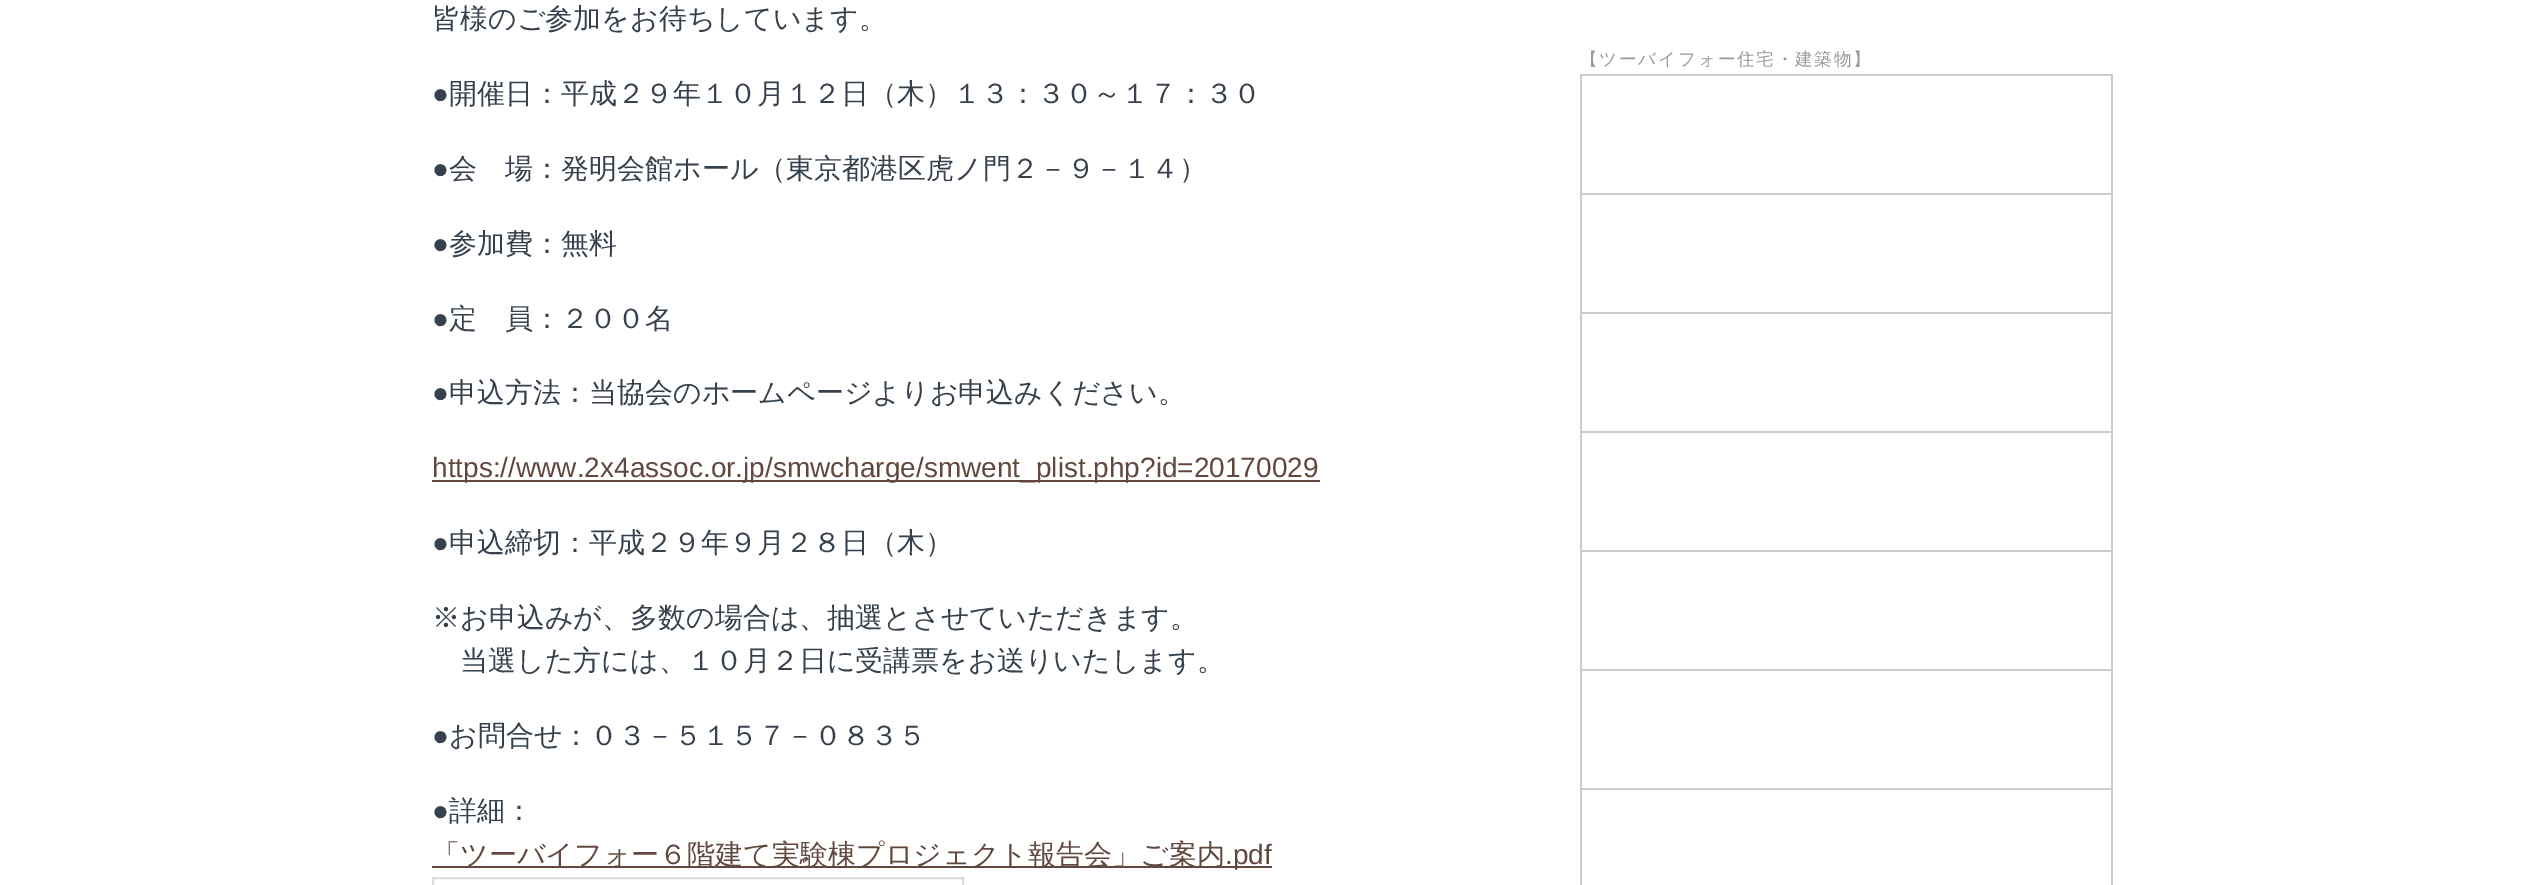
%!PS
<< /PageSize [2544 885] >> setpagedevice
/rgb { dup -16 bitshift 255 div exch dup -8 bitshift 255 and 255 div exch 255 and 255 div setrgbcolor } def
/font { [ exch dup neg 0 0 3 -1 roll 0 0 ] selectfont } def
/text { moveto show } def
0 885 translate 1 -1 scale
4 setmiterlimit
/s1 { /WenQuanYiZenHei-Medium 28 font 16#36414D rgb } def
/s2 { /LiberationSans-Regular 28 font 16#36414D rgb } def
/s3 { /LiberationSans-Regular 28 font 16#62473E rgb } def
/s4 { /WenQuanYiZenHei-Medium 28 font 16#62473E rgb } def
16#FFFFFF rgb
0 0 2544 885 rectfill
s1
(皆様のご参加をお待ちしています。) 432 28 text
s2
(●) 432 103 text
s1
(開催日：平成２９年１０月１２日（木）１３：３０～１７：３０) 449 103 text
s2
(●) 432 178 text
s1
(会　場：発明会館ホール（東京都港区虎ノ門２－９－１４）) 449 178 text
s2
(●) 432 253 text
s1
(参加費：無料) 449 253 text
s2
(●) 432 328 text
s1
(定　員：２００名) 449 328 text
s2
(●) 432 402 text
s1
(申込方法：当協会のホームページよりお申込みください。) 449 402 text
16#62473E rgb
432 480 888 2 rectfill
s3
(https://www.2x4assoc.or.jp/smwcharge/smwent_plist.php?id=20170029) 432 477 text
s2
(●) 432 552 text
s1
(申込締切：平成２９年９月２８日（木）) 449 552 text
(※お申込みが、多数の場合は、抽選とさせていただきます。) 432 627 text
(当選した方には、１０月２日に受講票をお送りいたします。) 460 670 text
s2
(●) 432 745 text
s1
(お問合せ：０３－５１５７－０８３５) 449 745 text
s2
(●) 432 820 text
s1
(詳細：) 449 820 text
16#62473E rgb
432 866 840 2 rectfill
(「ツーバイフォー６階建て実験棟プロジェクト報告会」ご案内) 432 864 text
16#DDDDDD rgb
2 setlinewidth
433 878 530 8 rectstroke
s3
(.pdf) 1225 864 text
/WenQuanYiZenHei-Medium 17.6 font
16#999999 rgb
1580 65 moveto 1.75 0 (【ツーバイフォー住宅・建築物】) ashow
16#CCCCCC rgb
1580 74 532 2 rectfill
2111 74 2 119 rectfill
1580 74 2 119 rectfill
1580 193 532 2 rectfill
2111 193 2 119 rectfill
1580 193 2 119 rectfill
1580 312 532 2 rectfill
2111 312 2 119 rectfill
1580 312 2 119 rectfill
1580 431 532 2 rectfill
2111 431 2 119 rectfill
1580 431 2 119 rectfill
1580 550 532 2 rectfill
2111 550 2 119 rectfill
1580 550 2 119 rectfill
1580 669 532 2 rectfill
2111 669 2 119 rectfill
1580 669 2 119 rectfill
1580 788 532 2 rectfill
2111 788 2 97 rectfill
1580 788 2 97 rectfill
showpage
